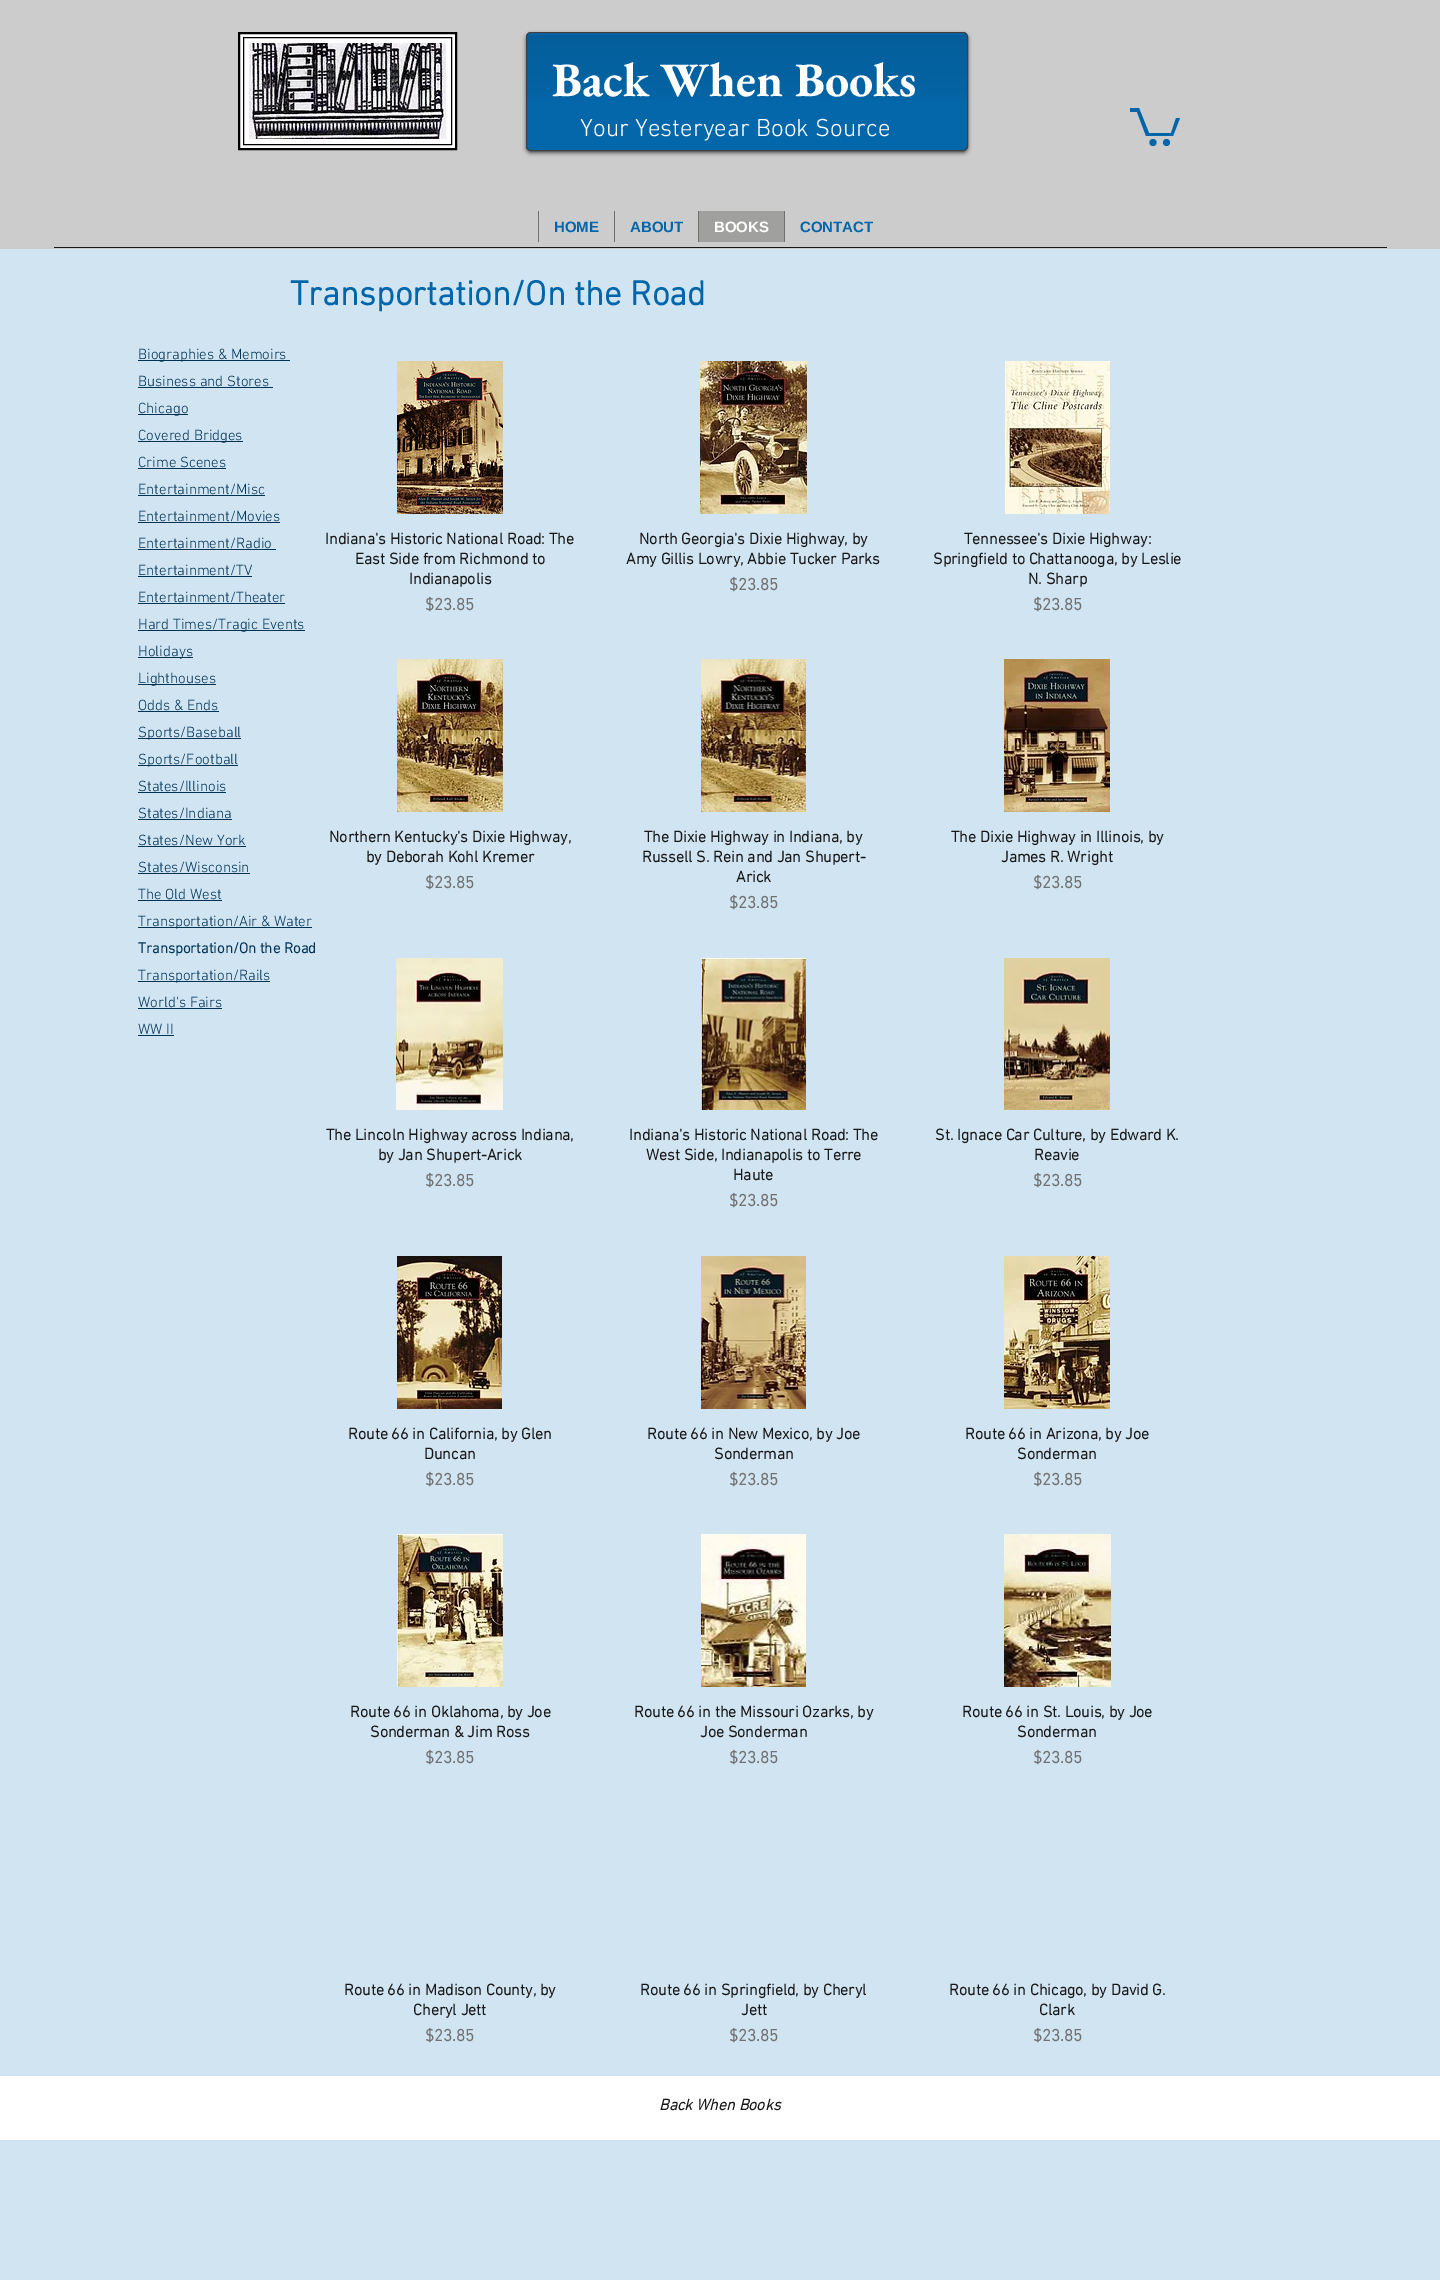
%!PS
<< /PageSize [1440 2280] /PageUsesTransparency true >> setpagedevice
/rgb { dup -16 bitshift 255 div exch dup -8 bitshift 255 and 255 div exch 255 and 255 div setrgbcolor } def
/font { [ exch dup neg 0 0 3 -1 roll 0 0 ] selectfont } def
/text { moveto show } def
/alpha { dup .setfillconstantalpha .setstrokeconstantalpha } def
/circle { newpath 0 360 arc closepath } def
/roundrect { 5 dict begin { /r /h /w /y /x } { exch def } forall
  x r add y moveto x w add y 2 copy h add r arct x w add y h add x 1 index r arct
  x y h add x y r arct x y 2 copy exch w add exch r arct closepath end } def
/shadow { 12 dict begin { /a /b /q /h /w /y /x } { exch def } forall gsave /was 0 def
  9 -2 -9 { dup b mul 4 div /e exch def 1 sub .425 mul 2.718 exch exp 1 add a .99 .min exch div /now exch def
    1 1 now sub 1 was sub div sub alpha /was now def
    w h .min e 2 mul add 0 gt { x e sub y e sub w e 2 mul add h e 2 mul add
      q e add b .6 mul add w h .min 2 div e add .min 0 .max roundrect fill } if } for grestore end } def
/picture { 5 dict begin { /h /w /y /x /name } { exch def } forall
  gsave x y translate w h scale
  w h 8 [w 0 0 h 0 0] name (r) file false 3 colorimage grestore end } def
0 .pushpdf14devicefilter
0 2280 translate 1 -1 scale
4 setmiterlimit
/s1 { /EBGaramond-Bold 48 font 16#FFFFFF rgb } def
/s2 { /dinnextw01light-Light 25 font 16#FFFFFF rgb } def
/s3 { /LiberationSans-Bold 15 font 16#0065A9 rgb } def
/s4 { /LiberationSans-Bold 15 font 16#FFFFFF rgb } def
/s5 { /dinnextw01light-Bold 35 font 16#0065A9 rgb } def
/s6 { /dinnextw01light-Light 15 font 16#003254 rgb } def
/s7 { /dinnextw01light-Bold 15 font 16#003254 rgb } def
/s8 { /dinnextw01light-Bold 16 font 16#171717 rgb } def
/s9 { /dinnextw01light-Bold 17 font 16#707070 rgb } def
/s10 { /dinnextw01light-BoldItalic 16 font 16#171717 rgb } def
16#D0E4F2 rgb
0 0 1440 2280 rectfill
16#CCCCCC rgb
0 0 1440 249 rectfill
16#FFFFFF rgb
239 33 moveto 456 33 lineto 456 149 lineto 239 149 lineto closepath gsave fill grestore
16#000000 rgb
2 setlinewidth
stroke
(pic1.raw) 249 43 197 96 picture
1 setlinewidth
243.5 37.5 208 107 rectstroke
gsave
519 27 moveto 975 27 lineto 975 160 lineto 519 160 lineto closepath 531 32 moveto 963 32 lineto 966 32 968 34 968 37 curveto 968 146 lineto 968 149 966 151 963 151 curveto 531 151 lineto 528 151 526 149 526 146 curveto 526 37 lineto 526 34 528 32 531 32 curveto closepath eoclip newpath
526 34 442 119 5 2 0.6 shadow
grestore
0.98 alpha
16#0065A9 rgb
526 32 442 119 5 roundrect fill
1 alpha
(pic2.raw) 526 35 442 65 picture
16#414141 rgb
526.5 32.5 441 118 4.5 roundrect stroke
s1
(Back When Books) 552 96 text
s2
(Your Yesteryear Book Source) 580 136 text
16#0065A9 rgb
1180 118 moveto 1173 136 lineto 1146 136 lineto 1137 112 lineto 1130 112 lineto 1130 108 lineto 1139 108 lineto 1149 133 lineto 1171 133 lineto 1176 118 lineto fill
1166.5 142.5 3.5 circle fill
1153 142.5 3.5 circle fill
16#707070 rgb
538 211 1 31 rectfill
s3
(HOME) 554 232 text
16#707070 rgb
614 211 1 31 rectfill
s3
(ABOUT) 630 232 text
16#A0A09F rgb
699 211 85 31 rectfill
16#707070 rgb
698 211 1 31 rectfill
s4
(BOOKS) 714 232 text
16#707070 rgb
784 211 1 31 rectfill
s3
(CONTACT) 800 232 text
16#171717 rgb
54 247 1333 1 rectfill
s5
(Transportation/On the Road) 290 305 text
16#003254 rgb
138 360 152 1 rectfill
s6
(Biographies & Memoirs) 138 359 text
(Business and Stores) 138 386 text
138 387 135 1 rectfill
138 414 50 1 rectfill
(Chicago) 138 413 text
138 441 105 1 rectfill
(Covered Bridges) 138 440 text
(Crime Scenes) 138 467 text
138 468 88 1 rectfill
(Entertainment/Misc) 138 494 text
138 495 127 1 rectfill
(Entertainment/Movies) 138 521 text
138 522 142 1 rectfill
(Entertainment/Radio) 138 548 text
138 549 138 1 rectfill
(Entertainment/TV) 138 575 text
138 576 114 1 rectfill
(Entertainment/Theater) 138 602 text
138 603 147 1 rectfill
138 630 167 1 rectfill
(Hard Times/Tragic Events) 138 629 text
138 657 55 1 rectfill
(Holidays) 138 656 text
138 684 78 1 rectfill
(Lighthouses) 138 683 text
(Odds & Ends) 138 710 text
138 711 81 1 rectfill
138 738 103 1 rectfill
(Sports/Baseball) 138 737 text
138 765 100 1 rectfill
(Sports/Football) 138 764 text
(States/Illinois) 138 791 text
138 792 88 1 rectfill
(States/Indiana) 138 818 text
138 819 94 1 rectfill
(States/New York) 138 845 text
138 846 108 1 rectfill
(States/Wisconsin) 138 872 text
138 873 112 1 rectfill
(The Old West) 138 899 text
138 900 84 1 rectfill
138 927 174 1 rectfill
(Transportation/Air & Water) 138 926 text
s7
(Transportation/On the Road) 138 953 text
138 981 132 1 rectfill
s6
(Transportation/Rails) 138 980 text
(World's Fairs) 138 1007 text
138 1008 84 1 rectfill
(WW II) 138 1034 text
138 1035 36 1 rectfill
(pic3.raw) 397 361 106 153 picture
s8
(Indiana's Historic National Road: The) 325 544 text
(East Side from Richmond to) 355 564 text
(Indianapolis) 409 584 text
s9
($23.85) 425 610 text
(pic4.raw) 700 361 107 153 picture
s8
(North Georgia's Dixie Highway, by) 639 544 text
(Amy Gillis Lowry, Abbie Tucker Parks) 626 564 text
s9
($23.85) 729 590 text
(pic5.raw) 1005 361 105 153 picture
s8
(Tennessee's Dixie Highway:) 964 544 text
(Springfield to Chattanooga, by Leslie) 933 564 text
(N. Sharp) 1028 584 text
s9
($23.85) 1033 610 text
(pic6.raw) 397 659 106 153 picture
s8
(Northern Kentucky's Dixie Highway,) 329 842 text
(by Deborah Kohl Kremer) 366 862 text
s9
($23.85) 425 888 text
(pic7.raw) 701 659 105 153 picture
s8
(The Dixie Highway in Indiana, by) 644 842 text
(Russell S. Rein and Jan Shupert-) 642 862 text
(Arick) 736 882 text
s9
($23.85) 729 908 text
(pic8.raw) 1004 659 106 153 picture
s8
(The Dixie Highway in Illinois, by) 951 842 text
(James R. Wright) 1001 862 text
s9
($23.85) 1033 888 text
(pic9.raw) 396 958 107 152 picture
s8
(The Lincoln Highway across Indiana,) 326 1140 text
(by Jan Shupert-Arick) 378 1160 text
s9
($23.85) 425 1186 text
(pic10.raw) 701 958 105 152 picture
s8
(Indiana's Historic National Road: The) 629 1140 text
(West Side, Indianapolis to Terre) 646 1160 text
(Haute) 733 1180 text
s9
($23.85) 729 1206 text
(pic11.raw) 1004 958 106 152 picture
s8
(St. Ignace Car Culture, by Edward K.) 935 1140 text
(Reavie) 1034 1160 text
s9
($23.85) 1033 1186 text
(pic12.raw) 397 1256 105 153 picture
s8
(Route 66 in California, by Glen) 348 1439 text
(Duncan) 424 1459 text
s9
($23.85) 425 1485 text
(pic13.raw) 701 1256 105 153 picture
s8
(Route 66 in New Mexico, by Joe) 647 1439 text
(Sonderman) 714 1459 text
s9
($23.85) 729 1485 text
(pic14.raw) 1004 1256 106 153 picture
s8
(Route 66 in Arizona, by Joe) 965 1439 text
(Sonderman) 1017 1459 text
s9
($23.85) 1033 1485 text
(pic15.raw) 397 1534 106 153 picture
s8
(Route 66 in Oklahoma, by Joe) 350 1717 text
(Sonderman & Jim Ross) 370 1737 text
s9
($23.85) 425 1763 text
(pic16.raw) 701 1534 105 153 picture
s8
(Route 66 in the Missouri Ozarks, by) 634 1717 text
(Joe Sonderman) 700 1737 text
s9
($23.85) 729 1763 text
(pic17.raw) 1004 1534 107 153 picture
s8
(Route 66 in St. Louis, by Joe) 962 1717 text
(Sonderman) 1017 1737 text
s9
($23.85) 1033 1763 text
s8
(Route 66 in Madison County, by) 344 1995 text
(Cheryl Jett) 413 2015 text
s9
($23.85) 425 2041 text
s8
(Route 66 in Springfield, by Cheryl) 640 1995 text
(Jett) 741 2015 text
s9
($23.85) 729 2041 text
s8
(Route 66 in Chicago, by David G.) 949 1995 text
(Clark) 1039 2015 text
s9
($23.85) 1033 2041 text
16#FFFFFF rgb
0 2076 1440 64 rectfill
s10
(Back When Books) 659 2110 text
.poppdf14devicefilter showpage
